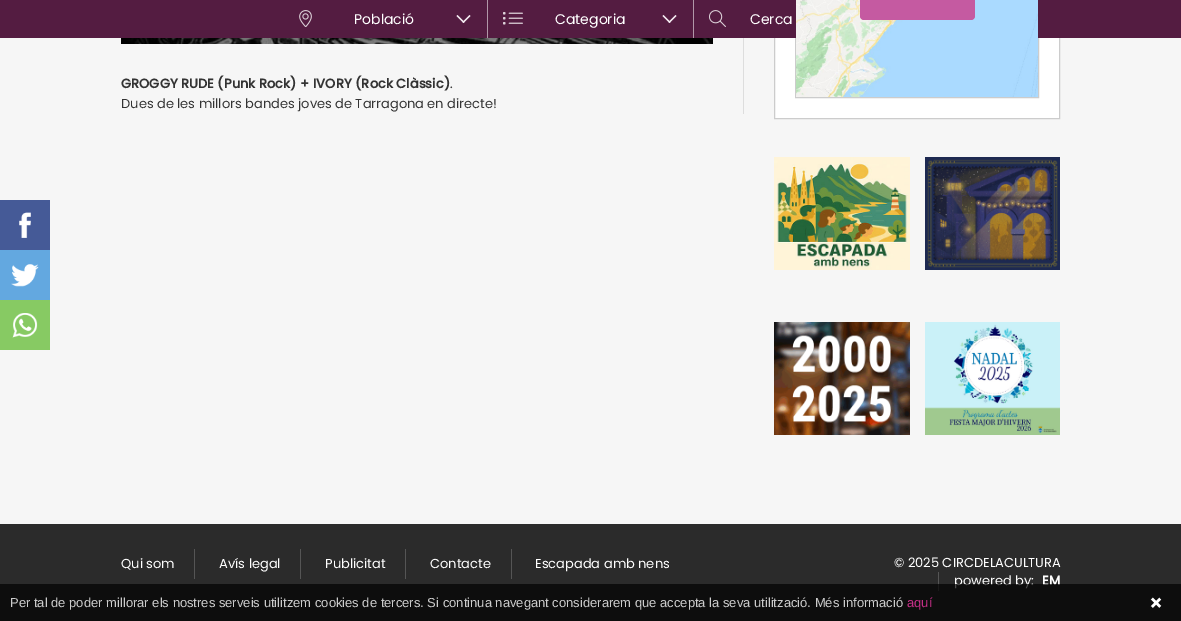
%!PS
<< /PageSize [1181 621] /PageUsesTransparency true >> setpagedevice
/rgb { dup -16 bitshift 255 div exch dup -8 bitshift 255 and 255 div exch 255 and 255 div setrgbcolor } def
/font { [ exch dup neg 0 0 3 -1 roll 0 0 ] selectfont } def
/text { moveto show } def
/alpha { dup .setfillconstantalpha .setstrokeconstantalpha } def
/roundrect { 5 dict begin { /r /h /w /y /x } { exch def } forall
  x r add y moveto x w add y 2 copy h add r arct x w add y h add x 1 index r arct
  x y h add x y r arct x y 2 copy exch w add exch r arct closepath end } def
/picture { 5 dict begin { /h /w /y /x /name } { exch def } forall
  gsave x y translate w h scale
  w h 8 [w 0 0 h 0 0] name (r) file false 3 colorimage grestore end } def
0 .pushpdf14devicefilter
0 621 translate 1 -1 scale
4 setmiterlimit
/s1 { /Poppins-Regular 14 font 16#FFFFFF rgb } def
/s2 { /Poppins-Bold 13 font 16#333333 rgb } def
/s3 { /Poppins-Regular 13 font 16#333333 rgb } def
/s4 { /Poppins-Regular 13 font 16#FFFFFF rgb } def
/s5 { /Poppins-Bold 13 font 16#FFFFFF rgb } def
/s6 { /LiberationSans-Regular 13 font 16#CCCCCC rgb } def
/s7 { /LiberationSans-Regular 13 font 16#C62F88 rgb } def
16#F6F6F6 rgb
0 0 1181 621 rectfill
16#FFFFFF rgb
775 38 284 80 rectfill
16#CCCCCC rgb
774.5 -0.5 285 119 rectstroke
795.5 -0.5 243 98 rectstroke
16#541C41 rgb
0 0 1181 38 rectfill
16#B197A8 rgb
487 0 1 38 rectfill
(pic1.raw) 299 10 13 17 picture
s1
(Població) 354 24 text
16#F6EDF3 rgb
457.5 15 moveto 464.5 22 lineto 463.5 23 lineto 456.5 16 lineto closepath fill
462.5 22 moveto 469.5 15 lineto 470.5 16 lineto 463.5 23 lineto closepath fill
16#B197A8 rgb
693 0 1 38 rectfill
(pic2.raw) 503 12 20 13 picture
s1
(Categoria) 555 24 text
16#F6EDF3 rgb
663.5 15 moveto 670.5 22 lineto 669.5 23 lineto 662.5 16 lineto closepath fill
668.5 22 moveto 675.5 15 lineto 676.5 16 lineto 669.5 23 lineto closepath fill
(pic3.raw) 709 10 17 17 picture
s1
(Cerca) 750 24 text
16#DDDDDD rgb
743 38 1 76 rectfill
(pic4.raw) 121 38 592 6 picture
0.5 alpha
16#000000 rgb
121 38 592 6 rectfill
1 alpha
s2
(GROGGY RUDE \(Punk Rock\) + IVORY \(Rock Clàssic\)) 121 88 text
s3
(.) 450 88 text
(Dues de les millors bandes joves de Tarragona en directe!) 121 108 text
(pic5.raw) 796 0 242 97 picture
16#C55AA1 rgb
860 -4 115 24 4 roundrect fill
(pic6.raw) 774 157 136 113 picture
(pic7.raw) 925 157 135 113 picture
(pic8.raw) 774 322 136 113 picture
(pic9.raw) 925 322 135 113 picture
16#455A97 rgb
0 200 50 50 rectfill
(pic10.raw) 19 212 12 26 picture
16#63A8E0 rgb
0 250 50 50 rectfill
(pic11.raw) 11 264 28 23 picture
16#87CA63 rgb
0 300 50 50 rectfill
(pic12.raw) 12 313 26 25 picture
16#2B2B2B rgb
0 524 1181 97 rectfill
16#555555 rgb
194 549 1 30 rectfill
s4
(Qui som) 121 568 text
16#555555 rgb
300 549 1 30 rectfill
s4
(Avís legal) 219 568 text
16#555555 rgb
405 549 1 30 rectfill
s4
(Publicitat) 325 568 text
16#555555 rgb
511 549 1 30 rectfill
s4
(Contacte) 430 568 text
(Escapada amb nens) 535 568 text
(© 2025 CIRCDELACULTURA) 894 567 text
16#555555 rgb
938 572 1 19 rectfill
s4
(powered by:) 954 585 text
s5
(EM) 1042 585 text
0.7 alpha
16#000000 rgb
0 584 1181 37 rectfill
1 alpha
s6
(Per tal de poder millorar els nostres serveis utilitzem cookies de tercers. Si continua navegant considerarem que accepta la seva utilització. Més informació) 10 607 text
s7
(aquí) 907 607 text
(pic13.raw) 1150 597 12 11 picture
.poppdf14devicefilter showpage
